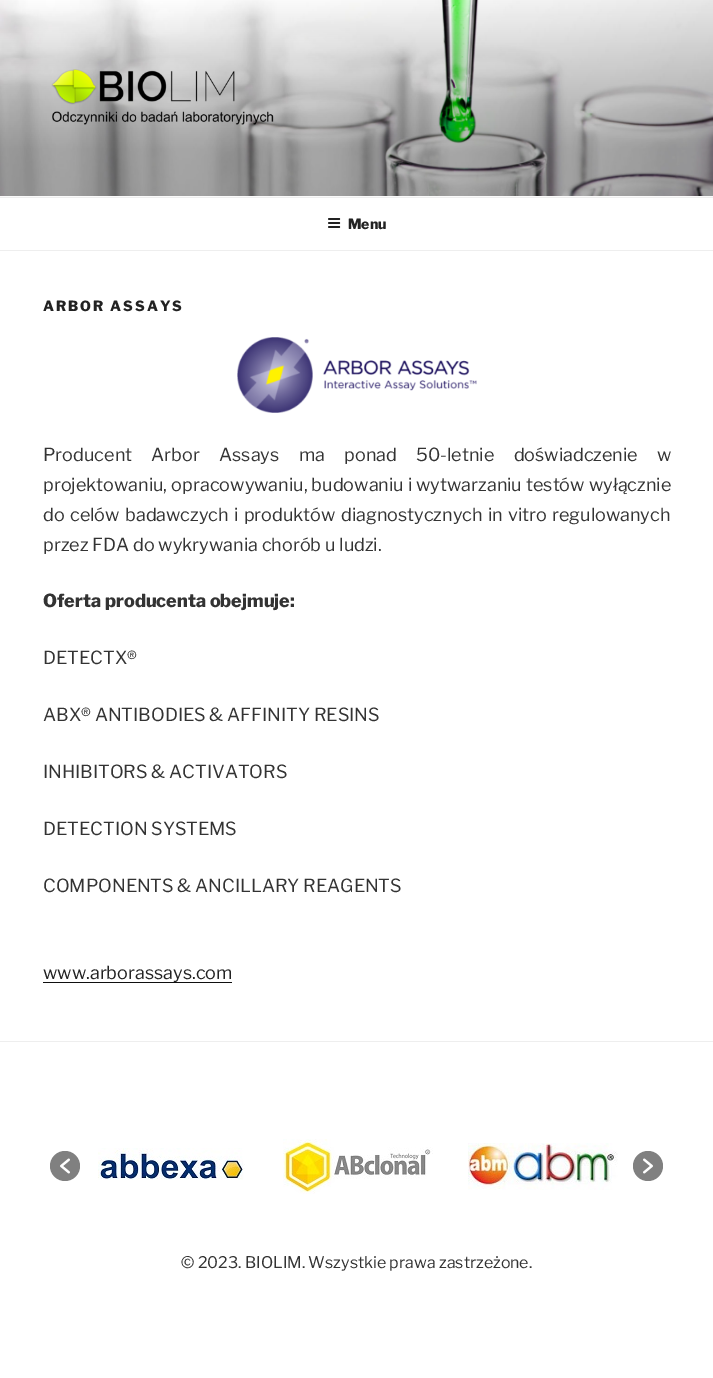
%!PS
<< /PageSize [713 1378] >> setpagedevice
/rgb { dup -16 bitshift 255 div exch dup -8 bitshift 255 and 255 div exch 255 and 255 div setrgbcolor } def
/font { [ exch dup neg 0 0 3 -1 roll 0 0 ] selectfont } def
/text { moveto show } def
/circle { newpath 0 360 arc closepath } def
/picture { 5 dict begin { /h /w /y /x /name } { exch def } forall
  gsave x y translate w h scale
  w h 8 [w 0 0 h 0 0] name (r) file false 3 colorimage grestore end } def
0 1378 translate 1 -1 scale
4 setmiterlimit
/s1 { /LibreFranklin-Thin 14 font 16#222222 rgb } def
/s2 { /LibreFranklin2-Thin 18 font 16#333333 rgb } def
/s3 { /LibreFranklin-Thin 18 font 16#333333 rgb } def
/s4 { /LibreFranklin2-Thin 18 font 16#222222 rgb } def
/s5 { /LibreFranklin2-Thin 16 font 16#333333 rgb } def
16#FFFFFF rgb
0 0 713 1378 rectfill
16#FAFAFA rgb
0 196 713 1 rectfill
(pic1.raw) 0 0 713 196 picture
(pic2.raw) 51 69 223 56 picture
16#EEEEEE rgb
0 197 713 1 rectfill
0 250 713 1 rectfill
(pic3.raw) 328 218 13 10 picture
s1
(Menu) 348 229 text
43 311 moveto 2 0 (ARBOR ASSAYS) ashow
(pic4.raw) 237 337 240 76 picture
/LibreFranklin2-Thin 18 font
16#333333 rgb
43 461 moveto 15.5 0 32 (Producent Arbor Assays ma ponad 50-letnie doświadczenie w) widthshow
43 491 moveto 0.25 0 32 (projektowaniu, opracowywaniu, budowaniu i wytwarzaniu testów wyłącznie) widthshow
43 521 moveto 1.5 0 32 (do celów badawczych) widthshow
234 521 moveto 1.5 0 32 (i produktów diagnostycznych in vitro regulowanych) widthshow
(przez FDA do wykrywania chorób u ludzi.) 43 551 text
s3
(Oferta producenta obejmuje:) 43 607 text
s2
(DETECTX®) 43 664 text
(ABX® ANTIBODIES & AFFINITY RESINS) 43 721 text
(INHIBITORS & ACTIVATORS) 43 778 text
(DETECTION SYSTEMS) 43 835 text
(COMPONENTS & ANCILLARY REAGENTS) 43 892 text
s4
(www.arborassays.com) 43 979 text
16#0F0F0F rgb
43 982 189 1 rectfill
16#EEEEEE rgb
0 1041 713 1 rectfill
16#808080 rgb
65 1166 15 circle fill
(pic5.raw) 60 1158 10 16 picture
(pic6.raw) 98 1148 147 32 picture
(pic7.raw) 283 1139 150 55 picture
(pic8.raw) 468 1143 150 47 picture
648 1166 15 circle fill
(pic9.raw) 643 1158 10 16 picture
s5
(© 2023. BIOLIM. Wszystkie prawa zastrzeżone.) 181 1268 text
showpage
